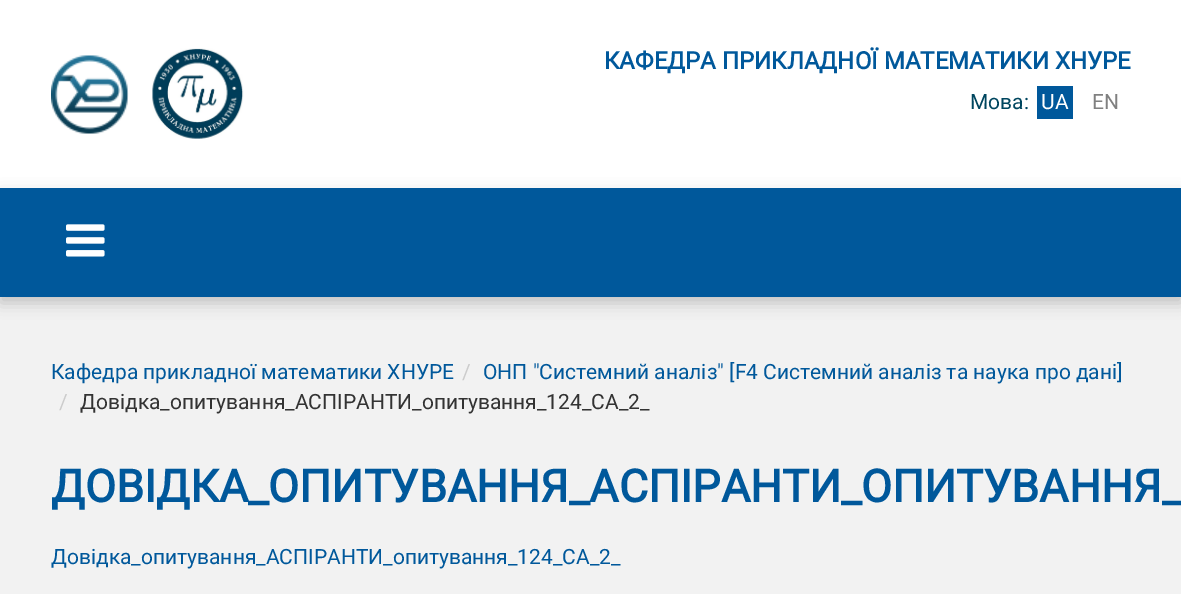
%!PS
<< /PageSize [1181 594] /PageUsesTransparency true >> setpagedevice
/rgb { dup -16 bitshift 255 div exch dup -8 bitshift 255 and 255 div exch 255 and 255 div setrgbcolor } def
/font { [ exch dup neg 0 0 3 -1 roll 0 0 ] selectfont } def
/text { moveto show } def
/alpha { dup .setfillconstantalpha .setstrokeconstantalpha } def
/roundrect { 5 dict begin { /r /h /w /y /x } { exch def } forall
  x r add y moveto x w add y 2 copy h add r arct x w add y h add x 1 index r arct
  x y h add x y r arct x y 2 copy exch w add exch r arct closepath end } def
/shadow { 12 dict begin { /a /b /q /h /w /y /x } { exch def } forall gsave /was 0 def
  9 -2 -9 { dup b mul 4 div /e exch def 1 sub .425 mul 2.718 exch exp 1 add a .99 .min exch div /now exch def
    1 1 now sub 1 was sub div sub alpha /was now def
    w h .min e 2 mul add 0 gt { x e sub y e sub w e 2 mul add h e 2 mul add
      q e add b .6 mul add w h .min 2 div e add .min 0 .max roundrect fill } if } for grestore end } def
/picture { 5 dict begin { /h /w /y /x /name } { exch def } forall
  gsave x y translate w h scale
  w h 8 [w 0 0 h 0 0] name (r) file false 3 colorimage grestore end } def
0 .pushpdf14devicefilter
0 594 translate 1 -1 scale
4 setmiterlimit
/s1 { /Roboto-Bold 24 font 16#00589B rgb } def
/s2 { /Roboto-Regular 21 font 16#00465F rgb } def
/s3 { /Roboto-Regular 21 font 16#FFFFFF rgb } def
/s4 { /Roboto-Regular 21 font 16#808080 rgb } def
/s5 { /Roboto-Regular 21 font 16#00589B rgb } def
/s6 { /Roboto-Regular 21 font 16#CCCCCC rgb } def
/s7 { /Roboto-Regular 21 font 16#333333 rgb } def
/s8 { /Roboto-Bold 45 font 16#00589B rgb } def
16#FFFFFF rgb
0 0 1181 594 rectfill
(pic1.raw) 51 55 78 79 picture
(pic2.raw) 152 48 92 91 picture
s1
(КАФЕДРА ПРИКЛАДНОЇ МАТЕМАТИКИ ХНУРЕ) 604 69 text
s2
(Мова:) 970 109 text
16#00589B rgb
1037 86 36 33 rectfill
s3
(UA) 1041 109 text
s4
(EN) 1092 109 text
16#F2F2F2 rgb
0 297 1181 297 rectfill
16#000000 rgb
0 194 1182 109 0 7.5 0.2 shadow
16#00589B rgb
0 188 1181 109 rectfill
(pic3.raw) 66 224 39 33 picture
(Кафедра прикладної математики ХНУРЕ) 51 379 text
s6
(/) 462 379 text
s5
(ОНП "Системний аналіз" [F4 Системний аналіз та наука про дані]) 483 379 text
s6
(/) 59 409 text
s7
(Довідка_опитування_АСПІРАНТИ_опитування_124_СА_2_) 80 409 text
s8
(ДОВІДКА_ОПИТУВАННЯ_АСПІРАНТИ_ОПИТУВАННЯ_) 51 502 text
s5
(Довідка_опитування_АСПІРАНТИ_опитування_124_СА_2_) 51 564 text
.poppdf14devicefilter showpage
